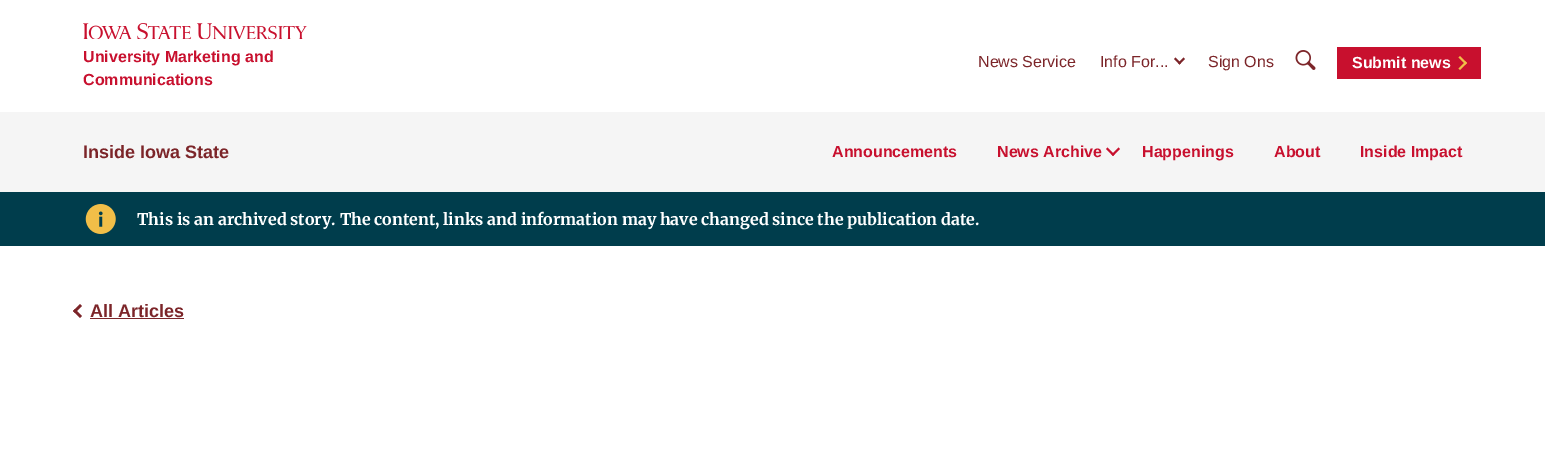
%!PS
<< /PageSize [1545 469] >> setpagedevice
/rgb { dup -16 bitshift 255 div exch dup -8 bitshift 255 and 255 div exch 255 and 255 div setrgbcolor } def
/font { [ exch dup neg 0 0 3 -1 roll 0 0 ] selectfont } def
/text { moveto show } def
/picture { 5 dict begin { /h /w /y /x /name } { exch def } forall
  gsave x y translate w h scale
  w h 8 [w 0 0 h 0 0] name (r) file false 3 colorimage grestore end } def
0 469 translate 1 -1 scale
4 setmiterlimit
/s1 { /LiberationSans-Bold 16 font 16#C8102E rgb } def
/s2 { /LiberationSans-Regular 16 font 16#7C2529 rgb } def
/s3 { /LiberationSans-Bold 16 font 16#FFFFFF rgb } def
/s4 { /LiberationSans-Bold 18 font 16#7C2529 rgb } def
/s5 { /Merriweather-Bold 16 font 16#FFFFFF rgb } def
16#FFFFFF rgb
0 0 1545 469 rectfill
(pic1.raw) 83 23 224 16 picture
s1
(University Marketing and) 83 62 text
(Communications) 83 85 text
s2
(News Service) 978 67 text
(Info For...) 1100 67 text
1183.5 57.5 moveto 1185 59 lineto 1179.5 64.5 lineto 1178 63 lineto closepath fill
1175.5 57.5 moveto 1181 63 lineto 1179.5 64.5 lineto 1174 59 lineto closepath fill
(Sign Ons) 1208 67 text
(pic2.raw) 1295 50 21 20 picture
16#C8102E rgb
1337 47 144 32 rectfill
s3
(Submit news) 1352 68 text
16#F1BE48 rgb
1458.5 57.5 moveto 1460 56 lineto 1467 63 lineto 1465.5 64.5 lineto closepath fill
1458.5 68.5 moveto 1465.5 61.5 lineto 1467 63 lineto 1460 70 lineto closepath fill
16#F5F5F5 rgb
0 112 1545 80 rectfill
s4
(Inside Iowa State) 83 158 text
s1
(Announcements) 832 157 text
(News Archive) 997 157 text
1118.5 147.5 moveto 1120 149 lineto 1113 156 lineto 1111.5 154.5 lineto closepath fill
1107.5 147.5 moveto 1114.5 154.5 lineto 1113 156 lineto 1106 149 lineto closepath fill
(Happenings) 1142 157 text
(About) 1274 157 text
(Inside Impact) 1360 157 text
16#003D4C rgb
0 192 1545 54 rectfill
(pic3.raw) 85 204 31 30 picture
s5
(This is an archived story. The content, links and information may have changed since the publication date.) 137 225 text
16#7C2529 rgb
75 309 moveto 82 316 lineto 80 318 lineto 73 311 lineto closepath fill
80 304 moveto 82 306 lineto 75 313 lineto 73 311 lineto closepath fill
s4
(All Articles) 90 317 text
90 318 94 1 rectfill
showpage
